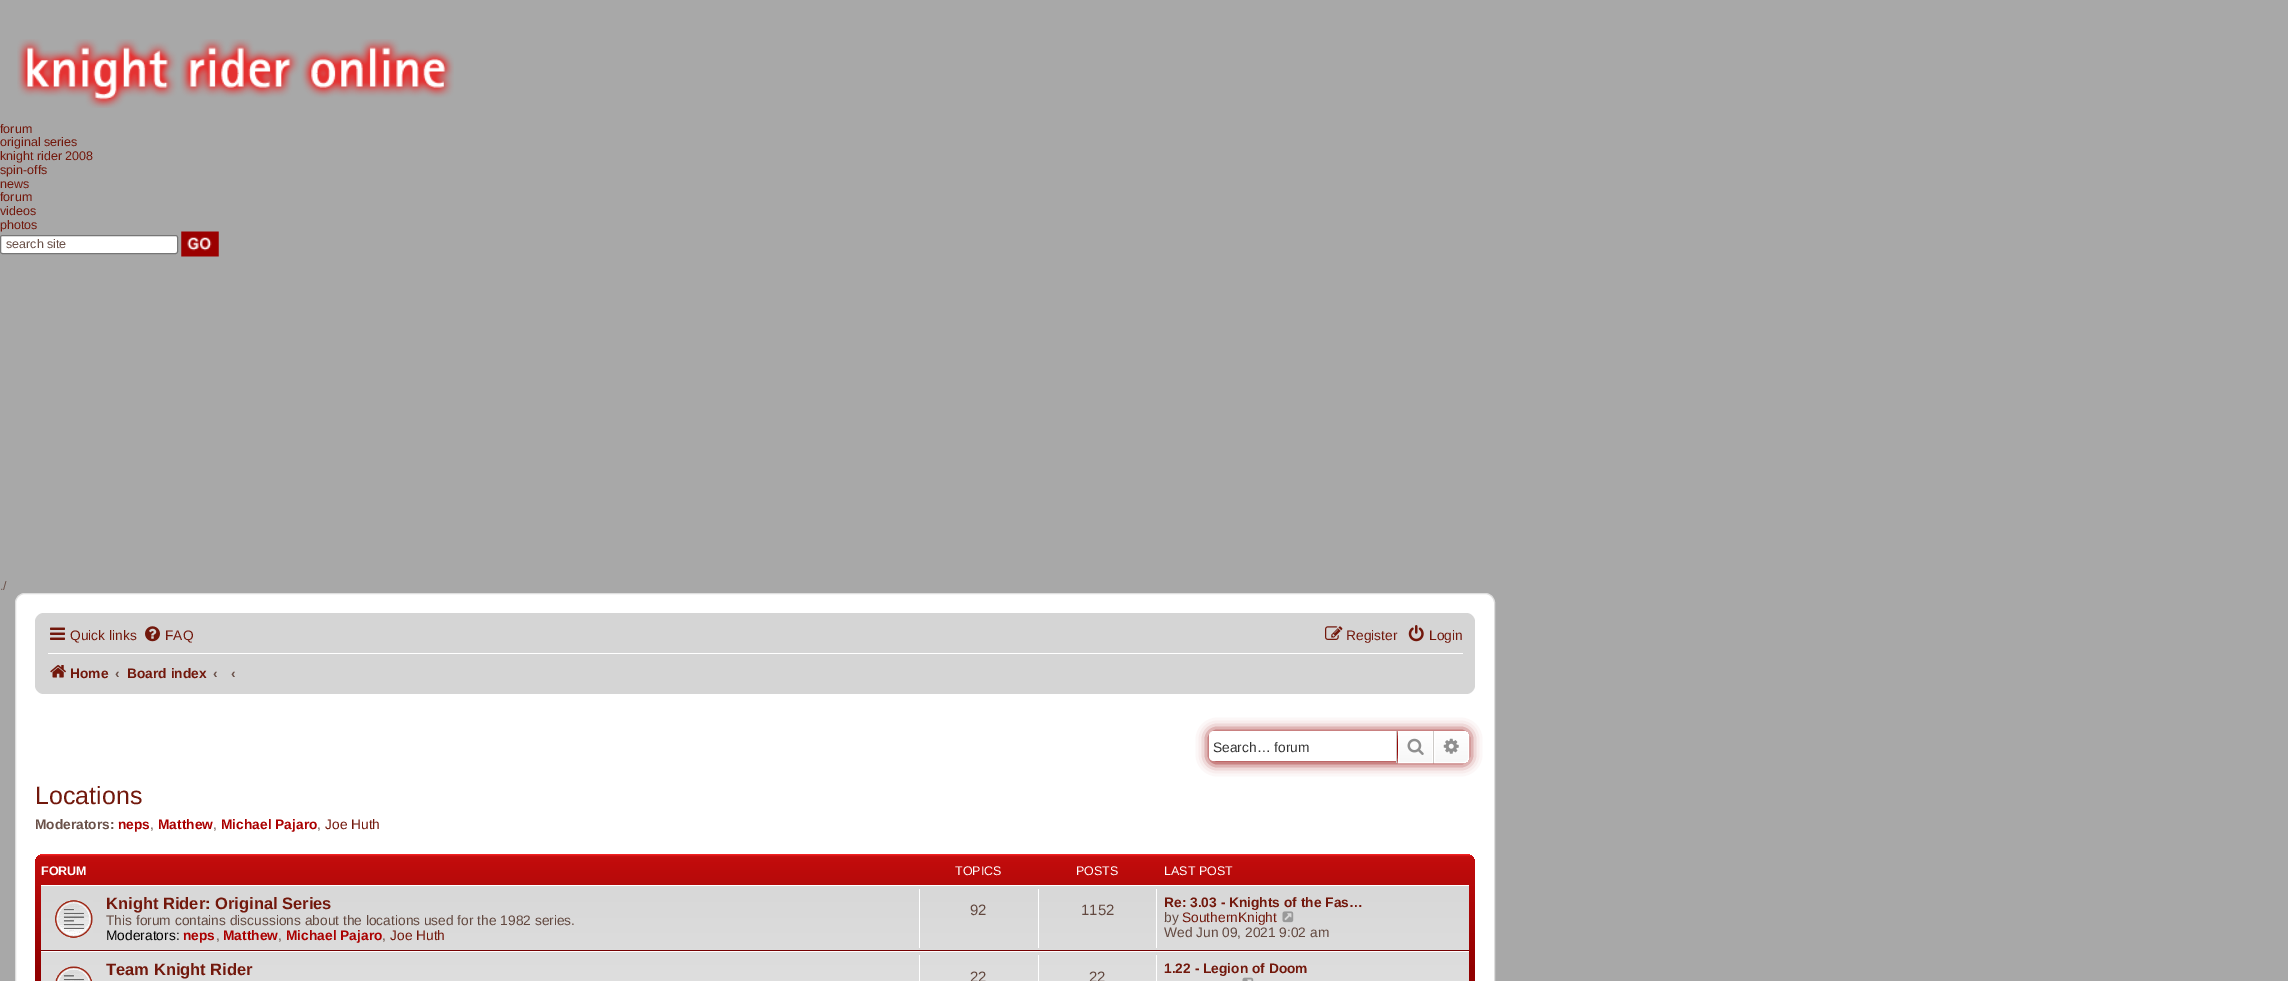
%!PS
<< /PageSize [2288 981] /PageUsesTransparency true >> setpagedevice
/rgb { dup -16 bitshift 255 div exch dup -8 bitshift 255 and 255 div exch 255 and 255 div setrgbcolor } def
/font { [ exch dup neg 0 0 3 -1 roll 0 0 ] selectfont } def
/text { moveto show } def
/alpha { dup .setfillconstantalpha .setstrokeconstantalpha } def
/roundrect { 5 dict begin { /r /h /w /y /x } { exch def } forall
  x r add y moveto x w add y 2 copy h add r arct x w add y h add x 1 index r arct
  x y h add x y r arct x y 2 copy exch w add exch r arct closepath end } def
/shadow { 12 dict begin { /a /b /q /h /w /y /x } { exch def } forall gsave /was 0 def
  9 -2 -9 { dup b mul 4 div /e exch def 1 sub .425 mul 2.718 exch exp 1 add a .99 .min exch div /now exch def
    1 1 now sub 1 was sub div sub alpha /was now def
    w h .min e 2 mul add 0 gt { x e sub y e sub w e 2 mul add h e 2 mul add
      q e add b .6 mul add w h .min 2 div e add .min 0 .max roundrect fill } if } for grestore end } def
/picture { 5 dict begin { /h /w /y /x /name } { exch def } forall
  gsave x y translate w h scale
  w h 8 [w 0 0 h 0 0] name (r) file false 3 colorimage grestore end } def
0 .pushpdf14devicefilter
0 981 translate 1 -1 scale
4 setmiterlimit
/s1 { /LiberationSans-Regular 12.5 font 16#72180C rgb } def
/s2 { /LiberationSans-Regular 12.5 font 16#6A5149 rgb } def
/s3 { /LiberationSans-Regular 13.75 font 16#72180C rgb } def
/s4 { /LiberationSans-Bold 13.75 font 16#72180C rgb } def
/s5 { /LiberationSans-Bold 13.75 font 16#6A5149 rgb } def
/s6 { /LiberationSans-Regular 13.75 font 16#333333 rgb } def
/s7 { /LiberationSans-Regular 25 font 16#72180C rgb } def
/s8 { /LiberationSans-Bold 13.75 font 16#AA0000 rgb } def
/s9 { /LiberationSans-Regular 13.75 font 16#6A5149 rgb } def
/s10 { /LiberationSans-Bold 12.5 font 16#FFFFFF rgb } def
/s11 { /LiberationSans-Regular 12.5 font 16#FFFFFF rgb } def
/s12 { /LiberationSans-Bold 16.5 font 16#72180C rgb } def
/s13 { /LiberationSans-Regular 13.75 font 16#62483F rgb } def
/s14 { /LiberationSans-Regular 13.75 font 16#000000 rgb } def
/s15 { /LiberationSans-Regular 15 font 16#62483F rgb } def
16#A8A8A8 rgb
0 0 2288 981 rectfill
(pic1.raw) 17 39 437 69 picture
s1
(forum) 0 133 text
(original series) 0 146 text
(knight rider 2008) 0 160 text
(spin-offs) 0 174 text
(news) 0 188 text
(forum) 0 201 text
(videos) 0 215 text
(photos) 0 229 text
16#FFFFFF rgb
0.5 235.5 177 18 2 roundrect gsave fill grestore
16#767676 rgb
stroke
s2
(search site) 6 248 text
(pic2.raw) 181 231 38 26 picture
(./) 0 590 text
16#FFFFFF rgb
15.5 593.5 1479 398 9.5 roundrect gsave fill grestore
16#DEDEDE rgb
stroke
16#D5D5D5 rgb
35 613 1440 81 9 roundrect fill
(pic3.raw) 50 627 15 13 picture
s3
(Quick links) 70 640 text
(pic4.raw) 145 626 15 16 picture
(FAQ) 165 640 text
(pic5.raw) 1325 626 18 14 picture
(Register) 1346 640 text
(pic6.raw) 1408 625 16 17 picture
(Login) 1429 640 text
16#FFFFFF rgb
48 653 1415 1 rectfill
(pic7.raw) 50 665 16 13 picture
s4
(Home) 70 678 text
s5
(‹) 115 678 text
s4
(Board index) 127 678 text
s5
(‹) 213 678 text
(‹) 231 678 text
16#900000 rgb
1209 731 260 32 5 6 1 shadow
16#FFFFFF rgb
1214 731 moveto 1396 731 lineto 1396 761 lineto 1214 761 lineto 1211 761 1209 759 1209 756 curveto 1209 736 lineto 1209 733 1211 731 1214 731 curveto closepath fill
s6
(Search… forum) 1213 752 text
gsave 1399 732 moveto 1432 732 lineto 1432 762 lineto 1399 762 lineto closepath clip newpath
<< /ShadingType 2 /ColorSpace /DeviceRGB /Coords [1415 731 1415 763] /Extend [true true] /Function << /FunctionType 2 /Domain [0 1] /C0 [1 1 1] /C1 [0.969 0.969 0.969] /N 1 >> >> shfill grestore
16#FFFFFF rgb
1398.5 731.5 34 31 rectstroke
16#CDCAC7 rgb
1433 731 1 32 rectfill
1396 731 1 32 rectfill
(pic8.raw) 1407 738 17 17 picture
gsave 1434.5 731.5 moveto 1464 731.5 lineto 1466.5 731.5 1468.5 733.5 1468.5 736 curveto 1468.5 758 lineto 1468.5 760.5 1466.5 762.5 1464 762.5 curveto 1434.5 762.5 lineto closepath clip newpath
<< /ShadingType 2 /ColorSpace /DeviceRGB /Coords [1451 731 1451 763] /Extend [true true] /Function << /FunctionType 2 /Domain [0 1] /C0 [1 1 1] /C1 [0.969 0.969 0.969] /N 1 >> >> shfill grestore
16#FFFFFF rgb
1434.5 731.5 moveto 1464 731.5 lineto 1466.5 731.5 1468.5 733.5 1468.5 736 curveto 1468.5 758 lineto 1468.5 760.5 1466.5 762.5 1464 762.5 curveto 1434.5 762.5 lineto closepath stroke
(pic9.raw) 1443 738 16 16 picture
s7
(Locations) 35 804 text
s5
(Moderators:) 35 829 text
s8
(neps) 118 829 text
s9
(,) 150 829 text
s8
(Matthew) 158 829 text
s9
(,) 213 829 text
s8
(Michael Pajaro) 221 829 text
s9
(,) 317 829 text
s3
(Joe Huth) 325 829 text
gsave 35 854 1440 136 9 roundrect clip newpath
<< /ShadingType 2 /ColorSpace /DeviceRGB /Coords [755 854 755 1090] /Extend [true true] /Function << /FunctionType 3 /Domain [0 1] /Functions [<< /FunctionType 2 /Domain [0 1] /C0 [1 0.161 0.165] /C1 [0.765 0.051 0.051] /N 1 >> << /FunctionType 2 /Domain [0 1] /C0 [0.765 0.051 0.051] /C1 [0.569 0 0] /N 1 >> << /FunctionType 2 /Domain [0 1] /C0 [0.569 0 0] /C1 [0.569 0 0] /N 1 >>] /Bounds [0.01 0.49] /Encode [0 1 0 1 0 1] >> >> shfill grestore
s10
(FORUM) 41 875 text
s11
(TOPICS) 955 875 text
(POSTS) 1076 875 text
(LAST POST) 1164 875 text
gsave 41 886 moveto 1469 886 lineto 1469 981 lineto 41 981 lineto closepath clip newpath
<< /ShadingType 2 /ColorSpace /DeviceRGB /Coords [755 885 755 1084] /Extend [true true] /Function << /FunctionType 2 /Domain [0 1] /C0 [0.847 0.847 0.847] /C1 [0.894 0.894 0.894] /N 1 >> >> shfill grestore
41 885 1428 1 rectfill
16#750001 rgb
41 950 1428 1 rectfill
(pic10.raw) 55 900 38 38 picture
s12
(Knight Rider: Original Series) 106 909 text
s13
(This forum contains discussions about the locations used for the 1982 series.) 106 925 text
s14
(Moderators:) 106 940 text
s8
(neps) 183 940 text
s13
(,) 216 940 text
s8
(Matthew) 223 940 text
s13
(,) 278 940 text
s8
(Michael Pajaro) 286 940 text
s13
(,) 382 940 text
s3
(Joe Huth) 390 940 text
16#FFFFFF rgb
919 889 1 59 rectfill
s15
(92) 970 915 text
16#FFFFFF rgb
1038 889 1 59 rectfill
s15
(1152) 1081 915 text
16#FFFFFF rgb
1156 889 1 59 rectfill
s4
(Re: 3.03 - Knights of the Fas…) 1164 907 text
s13
(by) 1164 922 text
s3
(SouthernKnight) 1182 922 text
(pic11.raw) 1282 911 12 12 picture
s13
(Wed Jun 09, 2021 9:02 am) 1164 937 text
16#FFFFFF rgb
41 951 1428 1 rectfill
(pic12.raw) 55 966 38 15 picture
s12
(Team Knight Rider) 106 975 text
16#FFFFFF rgb
919 955 1 26 rectfill
s15
(22) 970 982 text
16#FFFFFF rgb
1038 955 1 26 rectfill
s15
(22) 1089 982 text
16#FFFFFF rgb
1156 955 1 26 rectfill
s4
(1.22 - Legion of Doom) 1164 973 text
(pic13.raw) 1242 977 12 4 picture
.poppdf14devicefilter showpage
